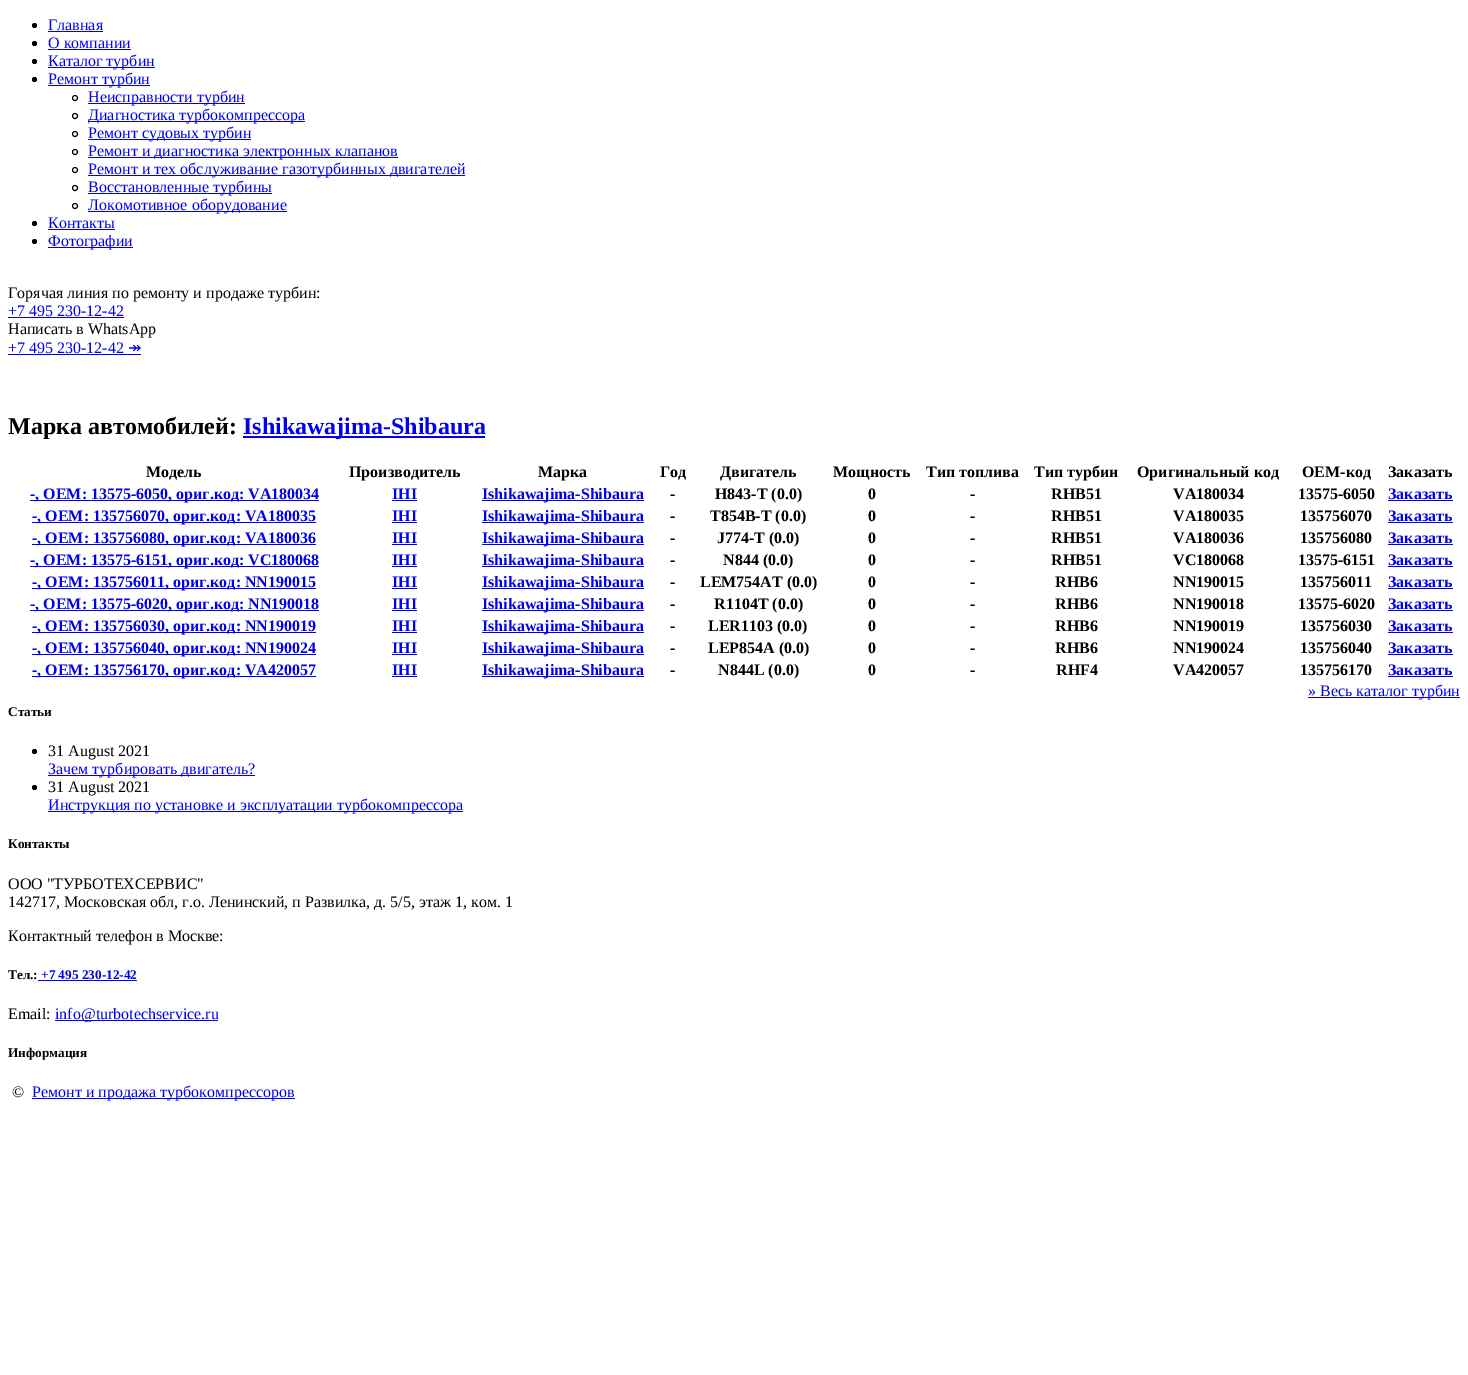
%!PS
<< /PageSize [1468 1375] >> setpagedevice
/rgb { dup -16 bitshift 255 div exch dup -8 bitshift 255 and 255 div exch 255 and 255 div setrgbcolor } def
/font { [ exch dup neg 0 0 3 -1 roll 0 0 ] selectfont } def
/text { moveto show } def
/circle { newpath 0 360 arc closepath } def
0 1375 translate 1 -1 scale
4 setmiterlimit
/s1 { /LiberationSerif-Regular 16 font 16#0000EE rgb } def
/s2 { /LiberationSerif-Regular 16 font 16#000000 rgb } def
/s3 { /DejaVuSans-Regular 16 font 16#0000EE rgb } def
/s4 { /LiberationSerif-Bold 24 font 16#000000 rgb } def
/s5 { /LiberationSerif-Bold 24 font 16#0000EE rgb } def
/s6 { /LiberationSerif-Bold 16 font 16#000000 rgb } def
/s7 { /LiberationSerif-Bold 16 font 16#0000EE rgb } def
/s8 { /LiberationSerif-Bold 13.25 font 16#000000 rgb } def
/s9 { /LiberationSerif-Bold 13.25 font 16#0000EE rgb } def
16#FFFFFF rgb
0 0 1468 1375 rectfill
16#000000 rgb
34.5 25.5 2.5 circle fill
s1
(Главная) 48 30 text
48 31 55 1 rectfill
16#000000 rgb
34.5 43.5 2.5 circle fill
s1
(О компании) 48 48 text
48 49 83 1 rectfill
16#000000 rgb
34.5 61.5 2.5 circle fill
16#0000EE rgb
48 67 107 1 rectfill
(Каталог турбин) 48 66 text
16#000000 rgb
34.5 79.5 2.5 circle fill
16#0000EE rgb
48 85 102 1 rectfill
(Ремонт турбин) 48 84 text
16#000000 rgb
75 98 2.5 circle stroke
16#0000EE rgb
88 103 157 1 rectfill
(Неисправности турбин) 88 102 text
16#000000 rgb
75 116 2.5 circle stroke
16#0000EE rgb
88 121 217 1 rectfill
(Диагностика турбокомпрессора) 88 120 text
16#000000 rgb
75 134 2.5 circle stroke
16#0000EE rgb
88 139 163 1 rectfill
(Ремонт судовых турбин) 88 138 text
16#000000 rgb
75 152 2.5 circle stroke
16#0000EE rgb
88 157 310 1 rectfill
(Ремонт и диагностика электронных клапанов) 88 156 text
16#000000 rgb
75 170 2.5 circle stroke
16#0000EE rgb
88 175 377 1 rectfill
(Ремонт и тех обслуживание газотурбинных двигателей) 88 174 text
16#000000 rgb
75 188 2.5 circle stroke
16#0000EE rgb
88 193 184 1 rectfill
(Восстановленные турбины) 88 192 text
16#000000 rgb
75 206 2.5 circle stroke
16#0000EE rgb
88 211 199 1 rectfill
(Локомотивное оборудование) 88 210 text
16#000000 rgb
34.5 223.5 2.5 circle fill
s1
(Контакты) 48 228 text
48 229 67 1 rectfill
16#000000 rgb
34.5 241.5 2.5 circle fill
16#0000EE rgb
48 247 85 1 rectfill
(Фотографии) 48 246 text
s2
(Горячая линия по ремонту и продаже турбин:) 8 298 text
s1
(+7 495 230-12-42) 8 316 text
8 317 116 1 rectfill
s2
(Написать в WhatsApp) 8 334 text
s1
(+7 495 230-12-42) 8 353 text
8 354 133 1 rectfill
s3
(↠) 128 353 text
s4
(Марка автомобилей:) 8 434 text
16#0000EE rgb
243 436 242 2 rectfill
(Ishikawajima-Shibaura) 243 434 text
s6
(Модель) 146 477 text
(Производитель) 349 477 text
(Марка) 538 477 text
(Год) 660 477 text
(Двигатель) 720 477 text
(Мощность) 833 477 text
(Тип топлива) 926 477 text
(Тип турбин) 1034 477 text
(Оригинальный код) 1137 477 text
(OEM-код) 1302 477 text
(Заказать) 1388 477 text
16#0000EE rgb
30 500 289 1 rectfill
(-, OEM: 13575-6050, ориг.код: VA180034) 30 499 text
(IHI) 392 499 text
392 500 25 1 rectfill
482 500 162 1 rectfill
(Ishikawajima-Shibaura) 482 499 text
s6
(-) 670 499 text
(H843-T \(0.0\)) 715 499 text
(0) 868 499 text
(-) 970 499 text
(RHB51) 1051 499 text
(VA180034) 1173 499 text
(13575-6050) 1298 499 text
s7
(Заказать) 1388 499 text
1388 500 65 1 rectfill
32 522 284 1 rectfill
(-, OEM: 135756070, ориг.код: VA180035) 32 521 text
(IHI) 392 521 text
392 522 25 1 rectfill
482 522 162 1 rectfill
(Ishikawajima-Shibaura) 482 521 text
s6
(-) 670 521 text
(T854B-T \(0.0\)) 710 521 text
(0) 868 521 text
(-) 970 521 text
(RHB51) 1051 521 text
(VA180035) 1173 521 text
(135756070) 1300 521 text
s7
(Заказать) 1388 521 text
1388 522 65 1 rectfill
32 544 284 1 rectfill
(-, OEM: 135756080, ориг.код: VA180036) 32 543 text
(IHI) 392 543 text
392 544 25 1 rectfill
482 544 162 1 rectfill
(Ishikawajima-Shibaura) 482 543 text
s6
(-) 670 543 text
(J774-T \(0.0\)) 717 543 text
(0) 868 543 text
(-) 970 543 text
(RHB51) 1051 543 text
(VA180036) 1173 543 text
(135756080) 1300 543 text
s7
(Заказать) 1388 543 text
1388 544 65 1 rectfill
30 566 289 1 rectfill
(-, OEM: 13575-6151, ориг.код: VC180068) 30 565 text
(IHI) 392 565 text
392 566 25 1 rectfill
482 566 162 1 rectfill
(Ishikawajima-Shibaura) 482 565 text
s6
(-) 670 565 text
(N844 \(0.0\)) 723 565 text
(0) 868 565 text
(-) 970 565 text
(RHB51) 1051 565 text
(VC180068) 1173 565 text
(13575-6151) 1298 565 text
s7
(Заказать) 1388 565 text
1388 566 65 1 rectfill
32 588 284 1 rectfill
(-, OEM: 135756011, ориг.код: NN190015) 32 587 text
(IHI) 392 587 text
392 588 25 1 rectfill
482 588 162 1 rectfill
(Ishikawajima-Shibaura) 482 587 text
s6
(-) 670 587 text
(LEM754AT \(0.0\)) 700 587 text
(0) 868 587 text
(-) 970 587 text
(RHB6) 1055 587 text
(NN190015) 1173 587 text
(135756011) 1300 587 text
s7
(Заказать) 1388 587 text
1388 588 65 1 rectfill
30 610 289 1 rectfill
(-, OEM: 13575-6020, ориг.код: NN190018) 30 609 text
(IHI) 392 609 text
392 610 25 1 rectfill
482 610 162 1 rectfill
(Ishikawajima-Shibaura) 482 609 text
s6
(-) 670 609 text
(R1104T \(0.0\)) 714 609 text
(0) 868 609 text
(-) 970 609 text
(RHB6) 1055 609 text
(NN190018) 1173 609 text
(13575-6020) 1298 609 text
s7
(Заказать) 1388 609 text
1388 610 65 1 rectfill
32 632 284 1 rectfill
(-, OEM: 135756030, ориг.код: NN190019) 32 631 text
(IHI) 392 631 text
392 632 25 1 rectfill
482 632 162 1 rectfill
(Ishikawajima-Shibaura) 482 631 text
s6
(-) 670 631 text
(LER1103 \(0.0\)) 708 631 text
(0) 868 631 text
(-) 970 631 text
(RHB6) 1055 631 text
(NN190019) 1173 631 text
(135756030) 1300 631 text
s7
(Заказать) 1388 631 text
1388 632 65 1 rectfill
32 654 284 1 rectfill
(-, OEM: 135756040, ориг.код: NN190024) 32 653 text
(IHI) 392 653 text
392 654 25 1 rectfill
482 654 162 1 rectfill
(Ishikawajima-Shibaura) 482 653 text
s6
(-) 670 653 text
(LEP854A \(0.0\)) 708 653 text
(0) 868 653 text
(-) 970 653 text
(RHB6) 1055 653 text
(NN190024) 1173 653 text
(135756040) 1300 653 text
s7
(Заказать) 1388 653 text
1388 654 65 1 rectfill
32 676 284 1 rectfill
(-, OEM: 135756170, ориг.код: VA420057) 32 675 text
(IHI) 392 675 text
392 676 25 1 rectfill
482 676 162 1 rectfill
(Ishikawajima-Shibaura) 482 675 text
s6
(-) 670 675 text
(N844L \(0.0\)) 718 675 text
(0) 868 675 text
(-) 970 675 text
(RHF4) 1056 675 text
(VA420057) 1173 675 text
(135756170) 1300 675 text
s7
(Заказать) 1388 675 text
1388 676 65 1 rectfill
1308 697 152 1 rectfill
s1
(» Весь каталог турбин) 1308 696 text
s8
(Статьи) 8 716 text
34.5 751.5 2.5 circle fill
s2
(31 August 2021) 48 756 text
16#0000EE rgb
48 775 207 1 rectfill
(Зачем турбировать двигатель?) 48 774 text
16#000000 rgb
34.5 787.5 2.5 circle fill
(31 August 2021) 48 792 text
16#0000EE rgb
48 811 415 1 rectfill
(Инструкция по установке и эксплуатации турбокомпрессора) 48 810 text
s8
(Контакты) 8 848 text
s2
(ООО "ТУРБОТЕХСЕРВИС") 8 889 text
(142717, Московская обл, г.о. Ленинский, п Развилка, д. 5/5, этаж 1, ком. 1) 8 907 text
(Контактный телефон в Москве:) 8 941 text
s8
(Тел.:) 8 979 text
s9
(+7 495 230-12-42) 41 979 text
38 980 99 1 rectfill
s2
(Email:) 8 1019 text
16#0000EE rgb
55 1020 163 1 rectfill
(info@turbotechservice.ru) 55 1019 text
s8
(Информация) 8 1057 text
s2
(©) 12 1097 text
16#0000EE rgb
32 1098 263 1 rectfill
(Ремонт и продажа турбокомпрессоров) 32 1097 text
showpage
